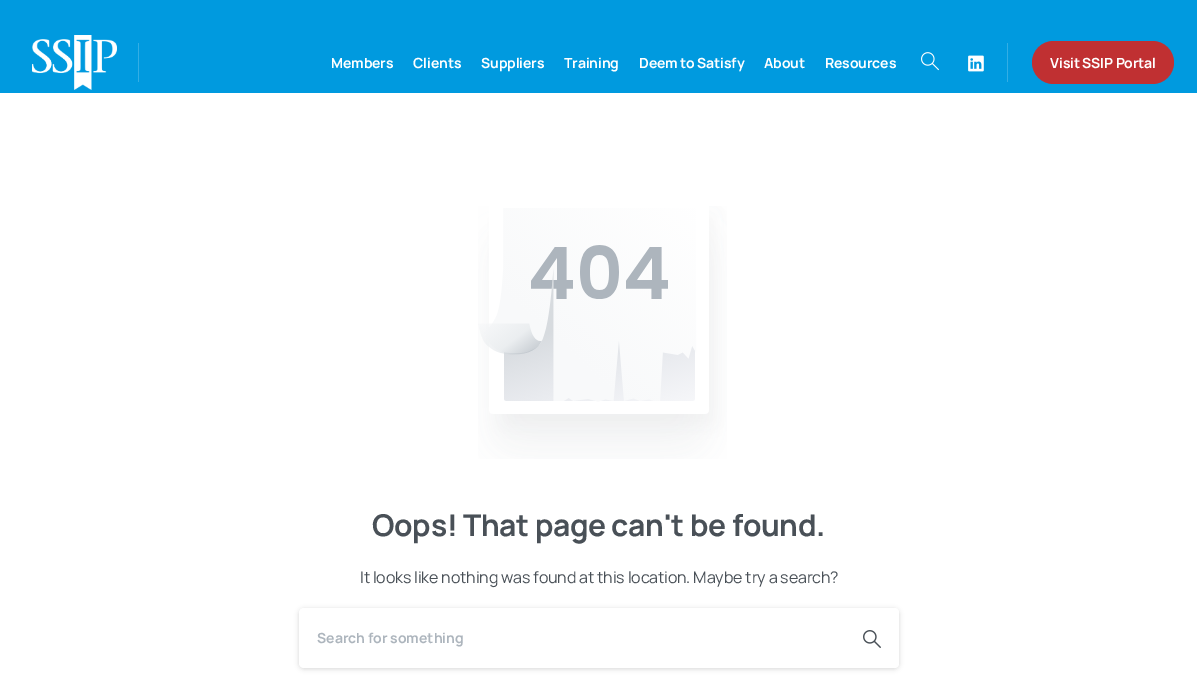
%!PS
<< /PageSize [1197 681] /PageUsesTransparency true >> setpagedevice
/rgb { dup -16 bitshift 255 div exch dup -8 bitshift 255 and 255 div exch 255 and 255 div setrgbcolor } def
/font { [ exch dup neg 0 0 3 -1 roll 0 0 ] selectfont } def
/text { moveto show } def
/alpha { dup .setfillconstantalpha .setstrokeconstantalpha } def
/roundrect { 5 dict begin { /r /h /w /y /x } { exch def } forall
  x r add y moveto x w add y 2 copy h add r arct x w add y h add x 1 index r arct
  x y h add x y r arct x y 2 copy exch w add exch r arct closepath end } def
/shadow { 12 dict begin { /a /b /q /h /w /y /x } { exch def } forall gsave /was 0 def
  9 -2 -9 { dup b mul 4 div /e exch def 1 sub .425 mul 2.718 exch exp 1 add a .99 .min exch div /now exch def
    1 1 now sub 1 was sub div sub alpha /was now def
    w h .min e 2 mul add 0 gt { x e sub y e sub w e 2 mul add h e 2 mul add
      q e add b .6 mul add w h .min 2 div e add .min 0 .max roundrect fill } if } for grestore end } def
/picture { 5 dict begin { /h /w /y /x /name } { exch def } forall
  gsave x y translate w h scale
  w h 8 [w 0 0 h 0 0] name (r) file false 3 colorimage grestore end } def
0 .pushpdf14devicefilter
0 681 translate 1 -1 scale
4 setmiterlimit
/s1 { /Manrope-Bold 14 font 16#ADB5BD rgb } def
16#FFFFFF rgb
0 0 1197 681 rectfill
16#009ADF rgb
0 0 1197 93 rectfill
(pic1.raw) 32 35 85 55 picture
16#33AEE5 rgb
138 43 1 39 rectfill
/Manrope-Bold 14 font
16#FFFFFF rgb
331 68 moveto -0.15 0 (Members) ashow
413 68 moveto -0.15 0 (Clients) ashow
481 68 moveto -0.15 0 (Suppliers) ashow
564 68 moveto -0.15 0 (Training) ashow
639 68 moveto -0.15 0 (Deem to Satisfy) ashow
764 68 moveto -0.15 0 (About) ashow
825 68 moveto -0.15 0 (Resources) ashow
(pic2.raw) 921 52 18 19 picture
(pic3.raw) 968 55 16 17 picture
16#33AEE5 rgb
1007 43 1 39 rectfill
16#C03032 rgb
1032 41 142 43 21.5 roundrect fill
16#FFFFFF rgb
1050 68 moveto -0.15 0 (Visit SSIP Portal) ashow
(pic4.raw) 478 206 249 253 picture
/Manrope-Bold 30 font
16#495057 rgb
372 536 moveto -0.3 0 (Oops! That page can't) ashow
690 536 moveto -0.3 0 (be found.) ashow
/Manrope-Regular 16 font
360 583 moveto -0.15 0 (It looks like nothing was found at this location. Maybe try a search?) ashow
16#000000 rgb
299 609 600 60 5 2.5 0.15 shadow
16#FFFFFF rgb
304 608 moveto 845 608 lineto 845 668 lineto 304 668 lineto 301 668 299 666 299 663 curveto 299 613 lineto 299 610 301 608 304 608 curveto closepath fill
s1
(Search for something) 317 643 text
16#FFFFFF rgb
845 608 moveto 895 608 lineto 897 608 899 610 899 612 curveto 899 664 lineto 899 666 897 668 895 668 curveto 845 668 lineto closepath fill
(pic5.raw) 863 630 18 18 picture
.poppdf14devicefilter showpage
